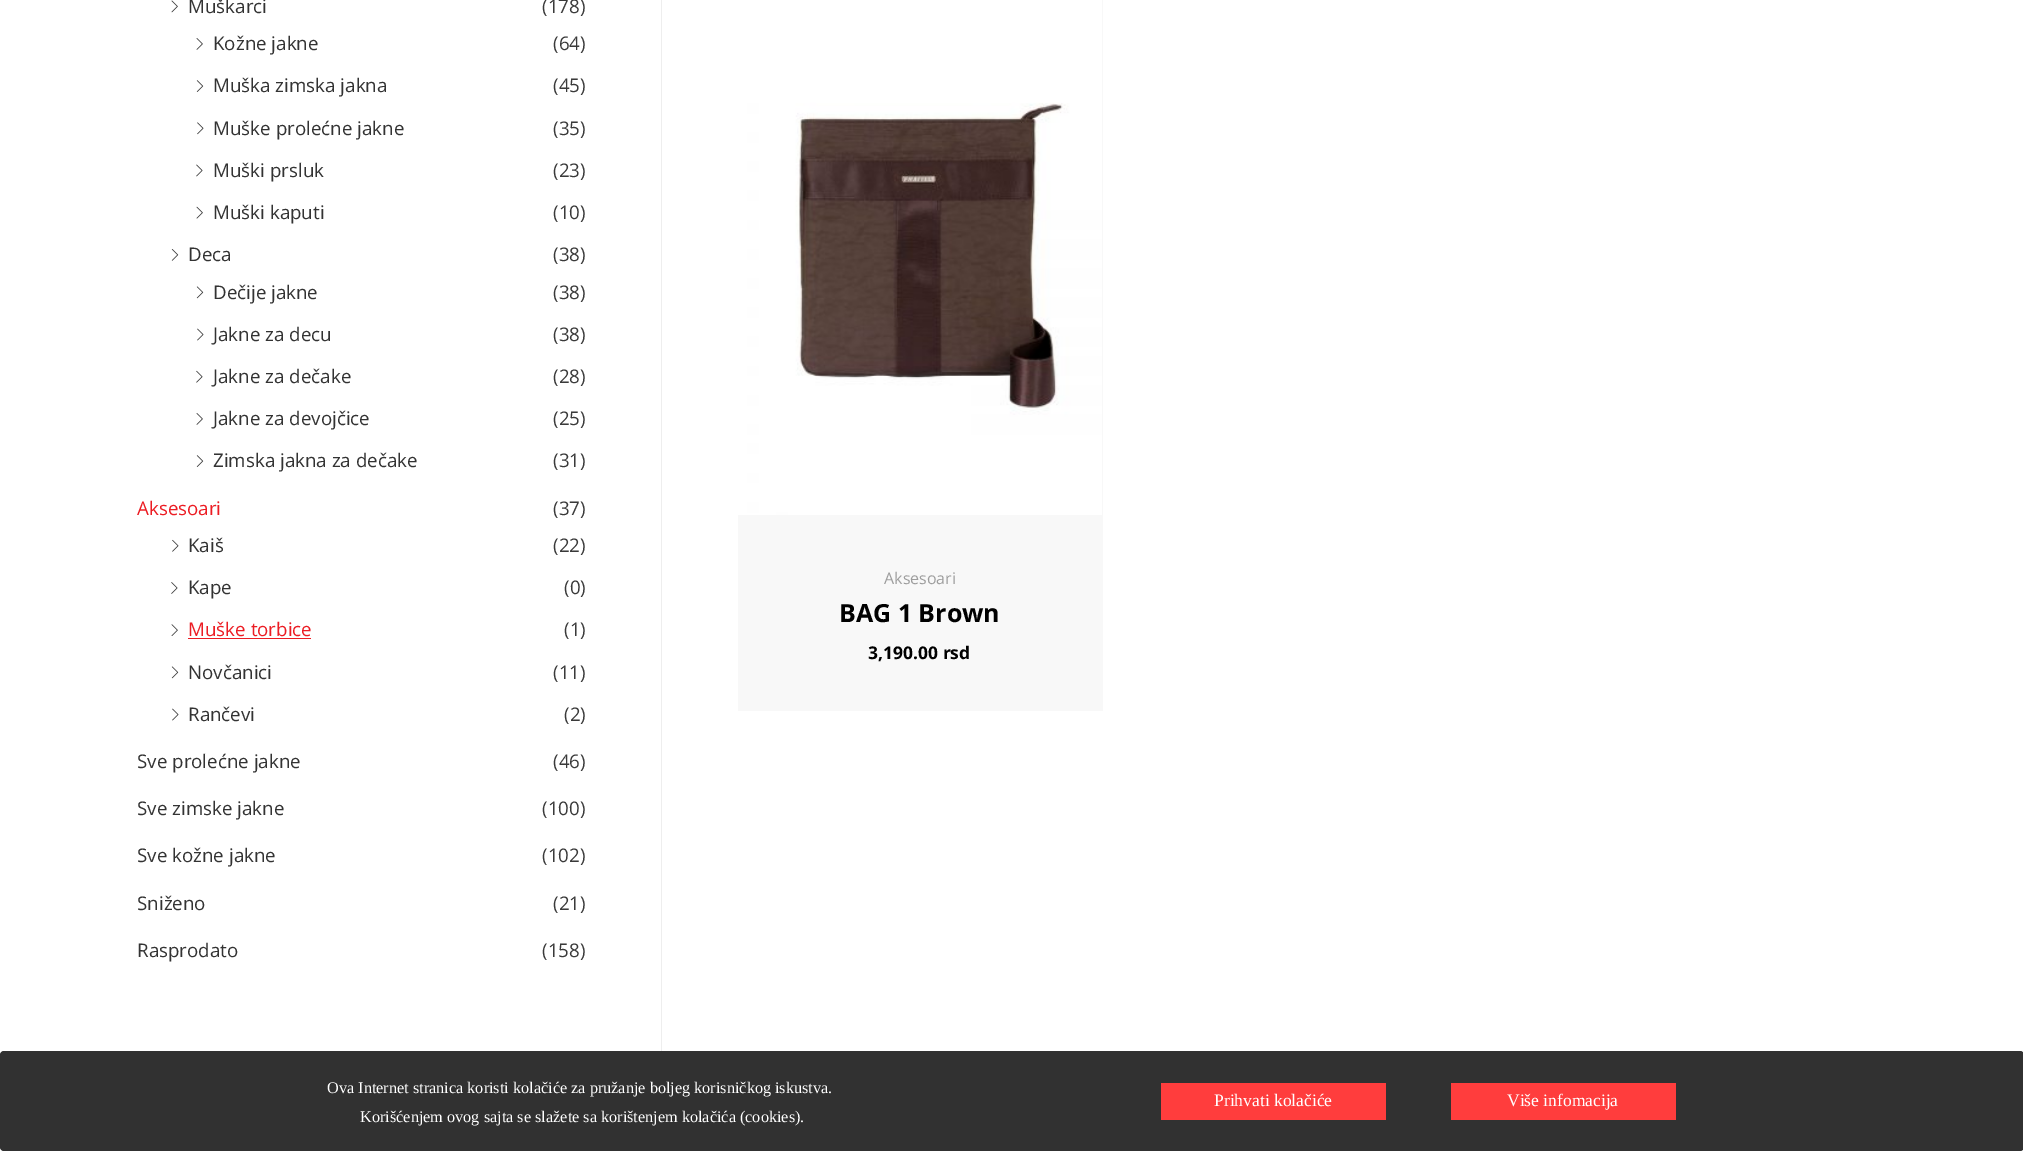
%!PS
<< /PageSize [2023 1151] >> setpagedevice
/rgb { dup -16 bitshift 255 div exch dup -8 bitshift 255 and 255 div exch 255 and 255 div setrgbcolor } def
/font { [ exch dup neg 0 0 3 -1 roll 0 0 ] selectfont } def
/text { moveto show } def
/roundrect { 5 dict begin { /r /h /w /y /x } { exch def } forall
  x r add y moveto x w add y 2 copy h add r arct x w add y h add x 1 index r arct
  x y h add x y r arct x y 2 copy exch w add exch r arct closepath end } def
/picture { 5 dict begin { /h /w /y /x /name } { exch def } forall
  gsave x y translate w h scale
  w h 8 [w 0 0 h 0 0] name (r) file false 3 colorimage grestore end } def
0 1151 translate 1 -1 scale
4 setmiterlimit
/s1 { /OpenSans-Regular 18.75 font 16#333333 rgb } def
/s2 { /OpenSans-Regular 18.75 font 16#3A3A3A rgb } def
/s3 { /OpenSans-Regular 18.75 font 16#EC1C23 rgb } def
/s4 { /OpenSans-Regular 16 font 16#9D9D9D rgb } def
/s5 { /OpenSans-Bold 25 font 16#000000 rgb } def
/s6 { /OpenSans-Bold 17.5 font 16#000000 rgb } def
/s7 { /LiberationSerif-Regular 16.25 font 16#FFFFFF rgb } def
/s8 { /LiberationSerif-Regular 17.5 font 16#FFFFFF rgb } def
16#FFFFFF rgb
0 0 2023 1151 rectfill
16#EEEEEE rgb
661 0 1 1051 rectfill
(pic1.raw) 171 0 7 13 picture
s1
(Muškarci) 188 13 text
s2
(\(178\)) 542 13 text
(pic2.raw) 196 38 7 12 picture
s1
(Kožne jakne) 213 50 text
s2
(\(64\)) 553 50 text
(pic3.raw) 196 80 8 12 picture
s1
(Muška zimska jakna) 213 92 text
s2
(\(45\)) 553 92 text
(pic4.raw) 197 122 7 13 picture
s1
(Muške prolećne jakne) 213 135 text
s2
(\(35\)) 553 135 text
(pic5.raw) 196 164 7 13 picture
s1
(Muški prsluk) 213 177 text
s2
(\(23\)) 553 177 text
(pic6.raw) 196 206 7 13 picture
s1
(Muški kaputi) 213 219 text
s2
(\(10\)) 553 219 text
(pic7.raw) 171 249 8 12 picture
s1
(Deca) 188 261 text
s2
(\(38\)) 553 261 text
(pic8.raw) 196 286 8 13 picture
s1
(Dečije jakne) 213 299 text
s2
(\(38\)) 553 299 text
(pic9.raw) 197 328 7 13 picture
s1
(Jakne za decu) 213 341 text
s2
(\(38\)) 553 341 text
(pic10.raw) 196 370 7 13 picture
s1
(Jakne za dečake) 213 383 text
s2
(\(28\)) 553 383 text
(pic2.raw) 196 413 7 12 picture
s1
(Jakne za devojčice) 213 425 text
s2
(\(25\)) 553 425 text
(pic3.raw) 196 455 8 12 picture
s1
(Zimska jakna za dečake) 213 467 text
s2
(\(31\)) 553 467 text
s3
(Aksesoari) 137 515 text
s2
(\(37\)) 553 515 text
(pic11.raw) 172 539 7 13 picture
s1
(Kaiš) 188 552 text
s2
(\(22\)) 553 552 text
(pic12.raw) 171 582 7 12 picture
s1
(Kape) 188 594 text
s2
(\(0\)) 564 594 text
(pic13.raw) 171 624 7 12 picture
s3
(Muške torbice) 188 636 text
188 638 123 1 rectfill
s2
(\(1\)) 564 636 text
(pic8.raw) 171 666 8 13 picture
s1
(Novčanici) 188 679 text
s2
(\(11\)) 553 679 text
(pic9.raw) 172 708 7 13 picture
s1
(Rančevi) 188 721 text
s2
(\(2\)) 564 721 text
s1
(Sve prolećne jakne) 137 768 text
s2
(\(46\)) 553 768 text
s1
(Sve zimske jakne) 137 815 text
s2
(\(100\)) 542 815 text
s1
(Sve kožne jakne) 137 862 text
s2
(\(102\)) 542 862 text
s1
(Sniženo) 137 910 text
s2
(\(21\)) 553 910 text
s1
(Rasprodato) 137 957 text
s2
(\(158\)) 542 957 text
16#F8F8F8 rgb
738 0 365 711 rectfill
(pic14.raw) 738 0 364 515 picture
s4
(Aksesoari) 884 584 text
s5
(BAG 1 Brown) 839 622 text
s6
(3,190.00 rsd) 868 659 text
16#313131 rgb
0 1051 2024 100 4 roundrect fill
s7
(Ova Internet stranica koristi kolačiće za pružanje boljeg korisničkog iskustva.) 327 1093 text
(Korišćenjem ovog sajta se slažete sa korištenjem kolačića \(cookies\).) 360 1122 text
16#FF3D3D rgb
1161 1083 225 37 rectfill
s8
(Prihvati kolačiće) 1214 1106 text
16#FF3D3D rgb
1451 1083 225 37 rectfill
s8
(Više infomacija) 1507 1106 text
showpage
